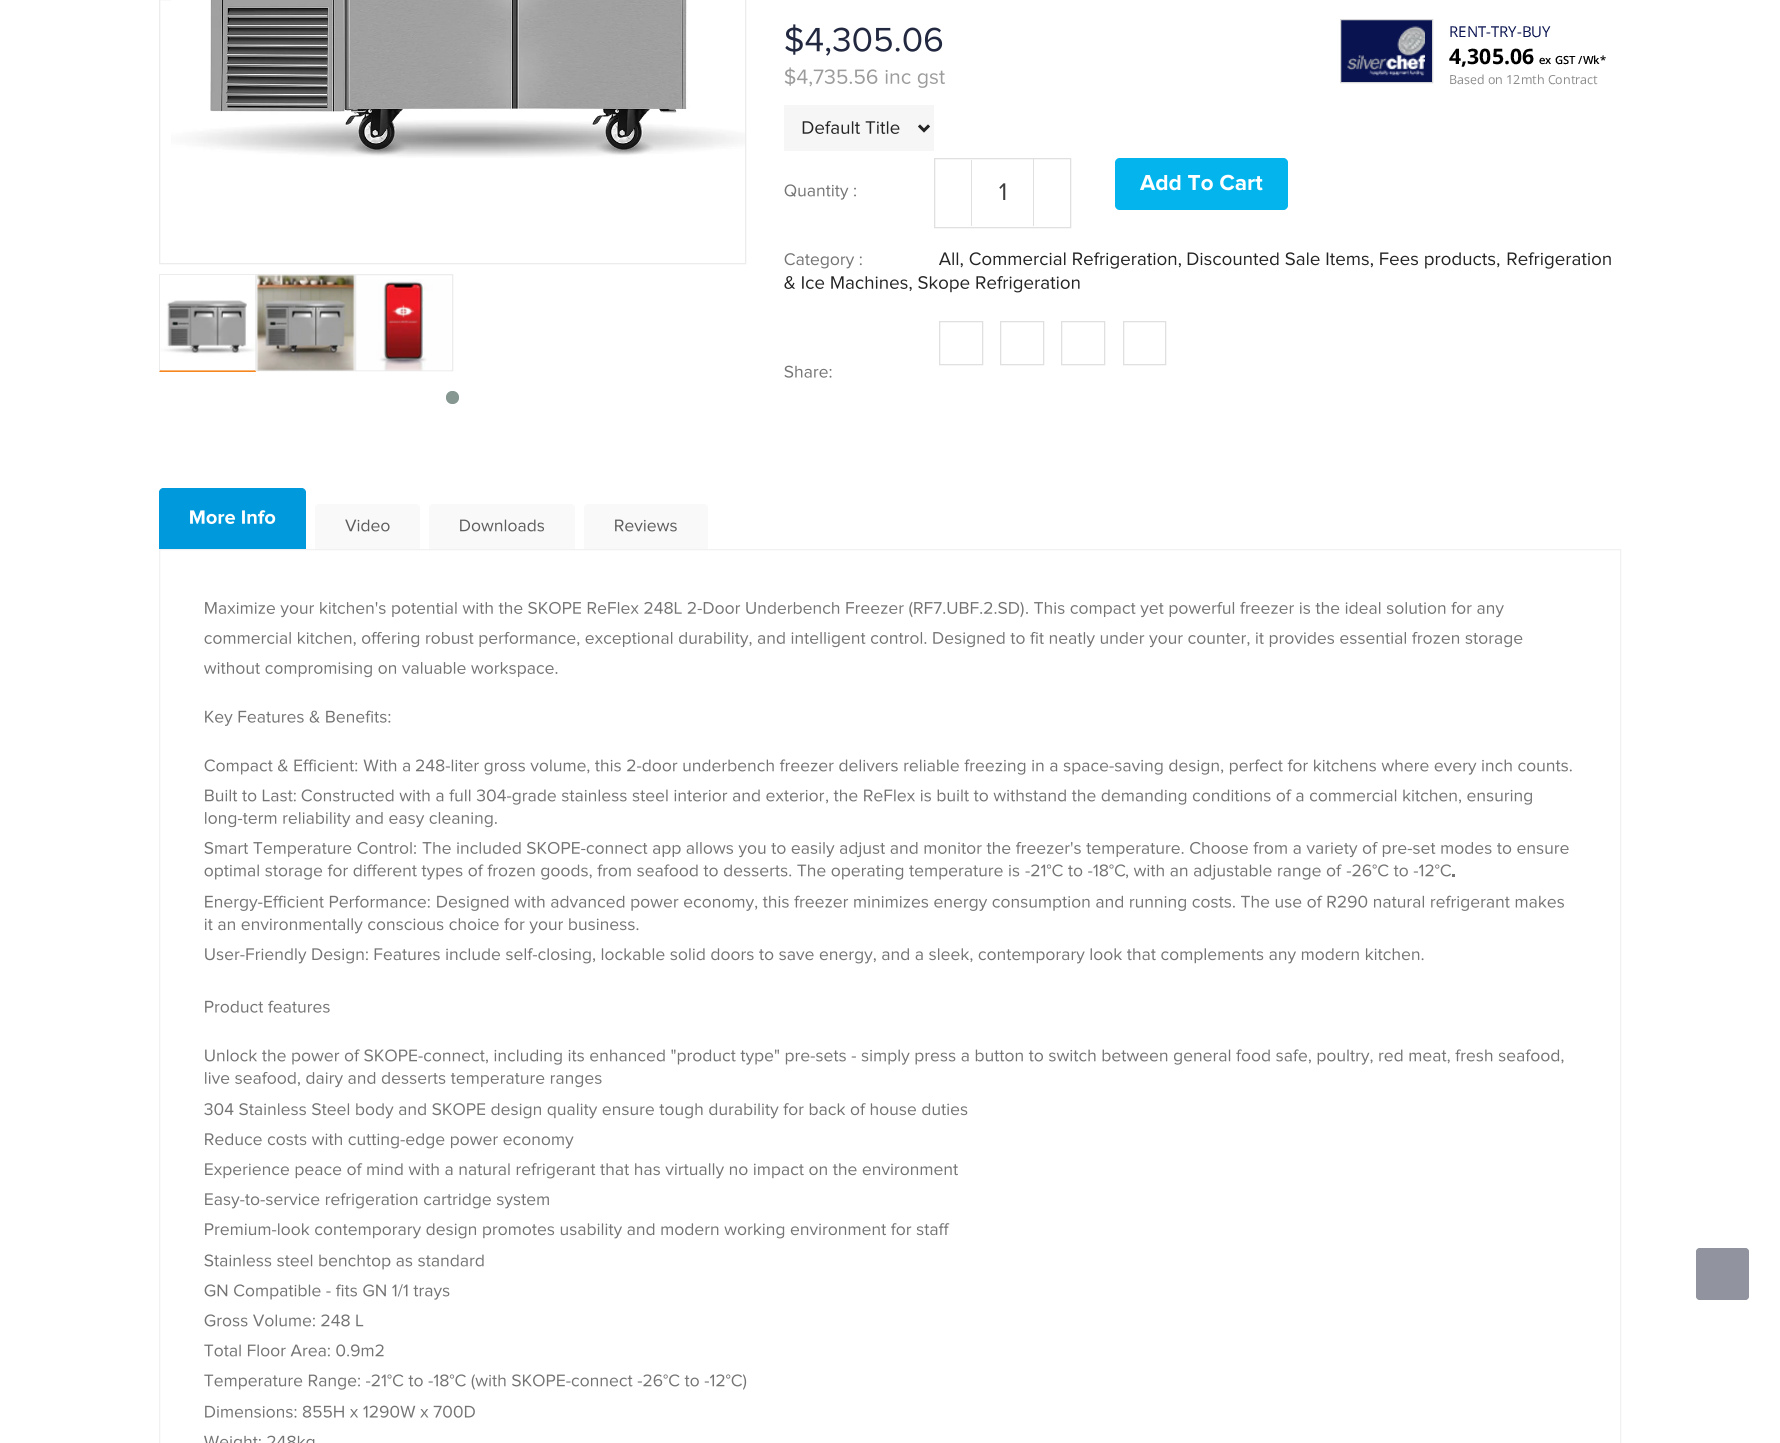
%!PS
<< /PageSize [1780 1443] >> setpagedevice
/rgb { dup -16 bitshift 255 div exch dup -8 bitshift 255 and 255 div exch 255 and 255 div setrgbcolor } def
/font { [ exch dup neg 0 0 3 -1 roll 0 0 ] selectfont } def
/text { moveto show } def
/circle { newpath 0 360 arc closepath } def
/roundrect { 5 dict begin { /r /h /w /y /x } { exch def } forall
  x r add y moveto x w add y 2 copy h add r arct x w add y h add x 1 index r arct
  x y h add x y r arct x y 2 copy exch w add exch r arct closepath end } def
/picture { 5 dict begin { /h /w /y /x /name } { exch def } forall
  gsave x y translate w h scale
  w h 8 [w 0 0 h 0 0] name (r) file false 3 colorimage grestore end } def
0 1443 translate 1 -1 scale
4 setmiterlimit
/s1 { /OpenSans-Regular 15 font 16#091350 rgb } def
/s2 { /OpenSans-Bold 21.25 font 16#000000 rgb } def
/s3 { /OpenSans-SemiBold 11.25 font 16#000000 rgb } def
/s4 { /OpenSans-Regular 12.5 font 16#8C8C8C rgb } def
16#FFFFFF rgb
0 0 1780 1443 rectfill
16#ECECEC rgb
159.5 -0.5 586 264 rectstroke
(pic1.raw) 171 0 574 158 picture
159 274 97 1 rectfill
256 274 moveto 256 372 lineto 255 370 lineto 255 275 lineto closepath fill
16#F68620 rgb
256 372 moveto 159 372 lineto 160 370 lineto 255 370 lineto closepath fill
16#ECECEC rgb
159 372 moveto 159 274 lineto 160 275 lineto 160 370 lineto closepath fill
(pic2.raw) 160 300 96 71 picture
256.5 274.5 98 96 rectstroke
(pic3.raw) 257 274 98 97 picture
355.5 274.5 97 96 rectstroke
(pic4.raw) 357 279 94 92 picture
16#869791 rgb
452.5 397.5 6.5 circle fill
(pic5.raw) 785 24 158 32 picture
(pic6.raw) 784 67 94 20 picture
(pic7.raw) 885 69 60 19 picture
16#091350 rgb
1340.5 19.5 moveto 1432.5 19.5 lineto 1432.5 82.5 lineto 1340.5 82.5 lineto closepath gsave fill grestore
16#D7D7D7 rgb
stroke
(pic8.raw) 1347 26 78 50 picture
s1
(RENT-TRY-BUY) 1449 37 text
s2
(4,305.06) 1449 64 text
s3
(ex GST /Wk*) 1539 64 text
s4
(Based on 12mth Contract) 1449 84 text
16#F6F6F6 rgb
784 105 150 46 rectfill
16#252424 rgb
2.5 setlinewidth
919 125.5 moveto 924 130.5 lineto 929 125.5 lineto stroke
(pic9.raw) 802 121 98 13 picture
(pic10.raw) 784 184 72 16 picture
16#E0E0E0 rgb
1 setlinewidth
934.5 158.5 136 69 rectstroke
(pic11.raw) 999 183 7 17 picture
971 160 1 66 rectfill
1033 159 1 67 rectfill
16#03B4ED rgb
1115 158 173 52 5 roundrect fill
(pic12.raw) 1140 174 123 17 picture
(pic13.raw) 784 253 78 16 picture
(pic14.raw) 939 252 24 16 picture
(pic15.raw) 969 252 212 17 picture
(pic16.raw) 1187 252 186 16 picture
(pic17.raw) 1380 252 120 17 picture
(pic18.raw) 1507 252 104 17 picture
(pic19.raw) 784 276 128 15 picture
(pic20.raw) 918 276 162 17 picture
16#E0E0E0 rgb
939.5 321.5 43 43 rectstroke
1000.5 321.5 43 43 rectstroke
1061.5 321.5 43 43 rectstroke
1123.5 321.5 42 43 rectstroke
(pic21.raw) 784 365 48 13 picture
16#0099DB rgb
164 488 moveto 301 488 lineto 304 488 306 490 306 493 curveto 306 549 lineto 159 549 lineto 159 493 lineto 159 490 161 488 164 488 curveto closepath fill
(pic22.raw) 190 510 86 14 picture
16#F9F9F9 rgb
320 504 moveto 415 504 lineto 418 504 420 506 420 509 curveto 420 549 lineto 315 549 lineto 315 509 lineto 315 506 317 504 320 504 curveto closepath fill
(pic23.raw) 345 519 45 13 picture
434 504 moveto 570 504 lineto 573 504 575 506 575 509 curveto 575 549 lineto 429 549 lineto 429 509 lineto 429 506 431 504 434 504 curveto closepath fill
(pic24.raw) 460 519 84 13 picture
589 504 moveto 703 504 lineto 706 504 708 506 708 509 curveto 708 549 lineto 584 549 lineto 584 509 lineto 584 506 586 504 589 504 curveto closepath fill
(pic25.raw) 615 519 62 13 picture
16#F1F1F1 rgb
159.5 549.5 1461 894 rectstroke
(pic26.raw) 205 602 318 16 picture
(pic27.raw) 528 601 496 17 picture
(pic28.raw) 1026 601 478 17 picture
(pic29.raw) 204 631 1319 17 picture
(pic30.raw) 204 662 354 16 picture
(pic31.raw) 205 710 186 16 picture
(pic32.raw) 204 759 154 16 picture
(pic33.raw) 363 759 47 13 picture
(pic34.raw) 415 759 171 16 picture
(pic35.raw) 587 759 985 16 picture
(pic36.raw) 205 789 91 13 picture
(pic37.raw) 301 789 170 13 picture
(pic38.raw) 476 789 349 16 picture
(pic39.raw) 826 789 706 16 picture
(pic40.raw) 205 812 292 16 picture
(pic41.raw) 204 841 212 16 picture
(pic42.raw) 422 842 99 12 picture
(pic43.raw) 527 841 154 16 picture
(pic44.raw) 686 841 883 17 picture
(pic45.raw) 204 864 816 16 picture
(pic46.raw) 1025 864 101 13 picture
(pic47.raw) 1126 864 216 16 picture
(pic48.raw) 1346 864 105 13 picture
16#747474 rgb
1452 874 3 3 rectfill
(pic49.raw) 205 895 225 16 picture
(pic50.raw) 437 895 1127 16 picture
(pic51.raw) 204 918 435 16 picture
(pic52.raw) 205 948 163 16 picture
(pic53.raw) 374 948 1050 16 picture
(pic54.raw) 205 1000 125 13 picture
(pic55.raw) 205 1049 1359 16 picture
(pic56.raw) 205 1072 397 16 picture
(pic57.raw) 204 1103 764 16 picture
(pic58.raw) 205 1133 369 16 picture
(pic59.raw) 205 1163 753 16 picture
(pic60.raw) 205 1193 344 16 picture
(pic61.raw) 205 1223 745 16 picture
(pic62.raw) 204 1254 280 16 picture
(pic63.raw) 204 1284 246 16 picture
(pic64.raw) 204 1314 160 13 picture
(pic65.raw) 204 1344 180 13 picture
(pic66.raw) 204 1374 543 16 picture
(pic67.raw) 205 1405 270 13 picture
(pic68.raw) 204 1435 111 8 picture
16#91949F rgb
1696 1248 53 52 4 roundrect fill
showpage
